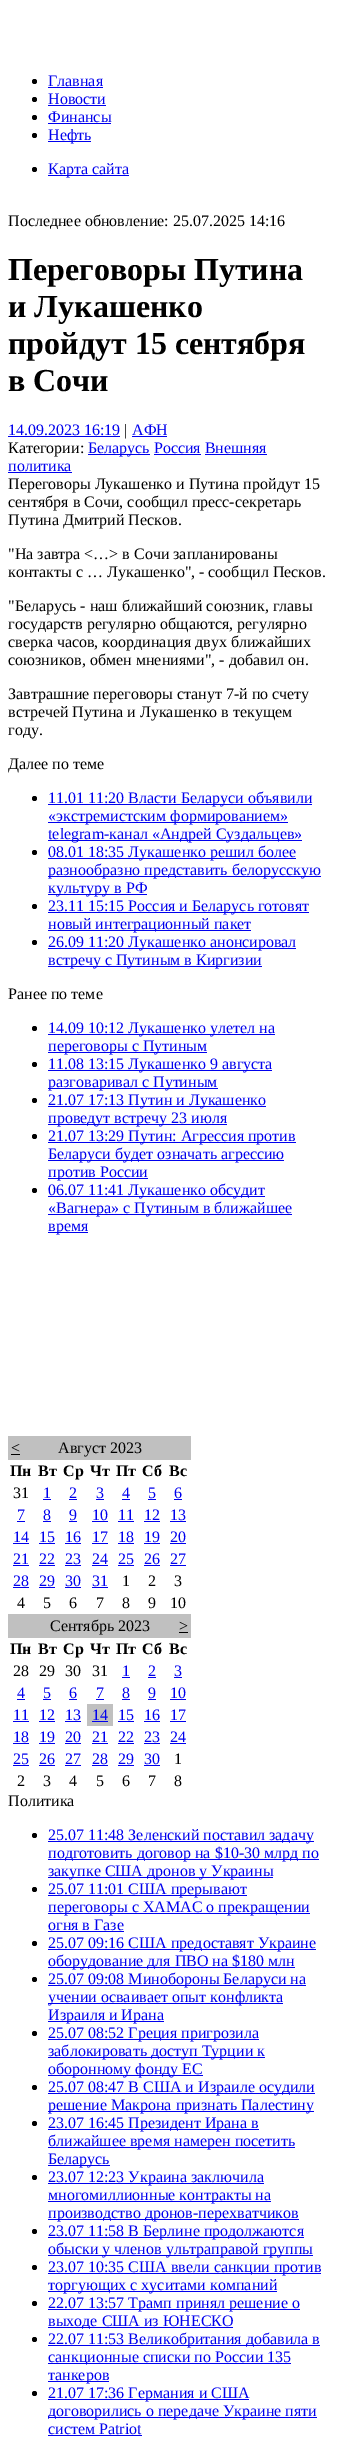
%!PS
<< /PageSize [337 2445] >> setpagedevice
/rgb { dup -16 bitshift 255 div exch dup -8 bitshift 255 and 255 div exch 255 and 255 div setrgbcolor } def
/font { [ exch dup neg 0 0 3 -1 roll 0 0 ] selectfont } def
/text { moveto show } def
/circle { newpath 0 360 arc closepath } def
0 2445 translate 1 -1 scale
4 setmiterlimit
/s1 { /LiberationSerif-Regular 16 font 16#0000EE rgb } def
/s2 { /LiberationSerif-Regular 16 font 16#000000 rgb } def
/s3 { /LiberationSerif-Bold 32 font 16#000000 rgb } def
/s4 { /LiberationSerif-Bold 16 font 16#000000 rgb } def
16#FFFFFF rgb
0 0 337 2445 rectfill
16#000000 rgb
34.5 81.5 2.5 circle fill
s1
(Главная) 48 86 text
48 87 55 1 rectfill
16#000000 rgb
34.5 99.5 2.5 circle fill
s1
(Новости) 48 104 text
48 105 58 1 rectfill
16#000000 rgb
34.5 117.5 2.5 circle fill
s1
(Финансы) 48 122 text
48 123 63 1 rectfill
16#000000 rgb
34.5 135.5 2.5 circle fill
16#0000EE rgb
48 141 43 1 rectfill
(Нефть) 48 140 text
16#000000 rgb
34.5 169.5 2.5 circle fill
16#0000EE rgb
48 175 81 1 rectfill
(Карта сайта) 48 174 text
s2
(Последнее обновление: 25.07.2025 14:16) 8 226 text
s3
(Переговоры Путина) 8 280 text
(и Лукашенко) 8 317 text
(пройдут 15 сентября) 8 354 text
(в Сочи) 8 391 text
s1
(14.09.2023 16:19) 8 435 text
8 436 112 1 rectfill
s2
(|) 124 435 text
s1
(АФН) 132 435 text
132 436 35 1 rectfill
s2
(Категории:) 8 453 text
16#0000EE rgb
88 454 62 1 rectfill
(Беларусь Россия Внешняя) 88 453 text
154 454 47 1 rectfill
(политика) 8 471 text
205 454 62 1 rectfill
8 472 64 1 rectfill
s2
(Переговоры Лукашенко и Путина пройдут 15) 8 489 text
(сентября в Сочи, сообщил пресс-секретарь) 8 507 text
(Путина Дмитрий Песков.) 8 525 text
("На завтра <…> в Сочи запланированы) 8 559 text
(контакты с … Лукашенко", - сообщил Песков.) 8 577 text
("Беларусь - наш ближайший союзник, главы) 8 611 text
(государств регулярно общаются, регулярно) 8 629 text
(сверка часов, координация двух ближайших) 8 647 text
(союзников, обмен мнениями", - добавил он.) 8 665 text
(Завтрашние переговоры станут 7-й по счету) 8 699 text
(встречей Путина и Лукашенко в текущем) 8 717 text
(году.) 8 735 text
(Далее по теме) 8 769 text
34.5 798.5 2.5 circle fill
16#0000EE rgb
48 804 264 1 rectfill
(11.01 11:20 Власти Беларуси объявили) 48 803 text
48 822 240 1 rectfill
(«экстремистским формированием») 48 821 text
48 840 254 1 rectfill
(telegram-канал «Андрей Суздальцев») 48 839 text
16#000000 rgb
34.5 852.5 2.5 circle fill
16#0000EE rgb
48 858 248 1 rectfill
(08.01 18:35 Лукашенко решил более) 48 857 text
48 876 273 1 rectfill
(разнообразно представить белорусскую) 48 875 text
48 894 99 1 rectfill
(культуру в РФ) 48 893 text
16#000000 rgb
34.5 906.5 2.5 circle fill
16#0000EE rgb
48 912 261 1 rectfill
(23.11 15:15 Россия и Беларусь готовят) 48 911 text
48 930 203 1 rectfill
(новый интеграционный пакет) 48 929 text
16#000000 rgb
34.5 942.5 2.5 circle fill
16#0000EE rgb
48 948 248 1 rectfill
(26.09 11:20 Лукашенко анонсировал) 48 947 text
48 966 214 1 rectfill
(встречу с Путиным в Киргизии) 48 965 text
s2
(Ранее по теме) 8 999 text
34.5 1028.5 2.5 circle fill
16#0000EE rgb
48 1034 227 1 rectfill
(14.09 10:12 Лукашенко улетел на) 48 1033 text
48 1052 159 1 rectfill
(переговоры с Путиным) 48 1051 text
16#000000 rgb
34.5 1064.5 2.5 circle fill
16#0000EE rgb
48 1070 224 1 rectfill
(11.08 13:15 Лукашенко 9 августа) 48 1069 text
48 1088 170 1 rectfill
(разговаривал с Путиным) 48 1087 text
16#000000 rgb
34.5 1100.5 2.5 circle fill
16#0000EE rgb
48 1106 218 1 rectfill
(21.07 17:13 Путин и Лукашенко) 48 1105 text
48 1124 179 1 rectfill
(проведут встречу 23 июля) 48 1123 text
16#000000 rgb
34.5 1136.5 2.5 circle fill
16#0000EE rgb
48 1142 248 1 rectfill
(21.07 13:29 Путин: Агрессия против) 48 1141 text
48 1160 236 1 rectfill
(Беларуси будет означать агрессию) 48 1159 text
48 1178 100 1 rectfill
(против России) 48 1177 text
16#000000 rgb
34.5 1190.5 2.5 circle fill
16#0000EE rgb
48 1196 217 1 rectfill
(06.07 11:41 Лукашенко обсудит) 48 1195 text
48 1214 244 1 rectfill
(«Вагнера» с Путиным в ближайшее) 48 1213 text
48 1232 40 1 rectfill
(время) 48 1231 text
16#C0C0C0 rgb
8 1436 183 24 rectfill
s2
(<) 11 1453 text
11 1454 9 1 rectfill
(Август 2023) 58 1453 text
s4
(Пн) 10 1476 text
(Вт) 38 1476 text
(Ср) 63 1476 text
(Чт) 90 1476 text
(Пт) 116 1476 text
(Сб) 142 1476 text
(Вс) 169 1476 text
s2
(31) 13 1498 text
s1
(1) 43 1498 text
43 1499 8 1 rectfill
(2) 69 1498 text
69 1499 8 1 rectfill
(3) 96 1498 text
96 1499 8 1 rectfill
(4) 122 1498 text
122 1499 8 1 rectfill
(5) 148 1498 text
148 1499 8 1 rectfill
(6) 174 1498 text
174 1499 8 1 rectfill
(7) 17 1520 text
17 1521 8 1 rectfill
(8) 43 1520 text
43 1521 8 1 rectfill
(9) 69 1520 text
69 1521 8 1 rectfill
(10) 92 1520 text
92 1521 16 1 rectfill
(11) 118 1520 text
118 1521 16 1 rectfill
(12) 144 1520 text
144 1521 16 1 rectfill
(13) 170 1520 text
170 1521 16 1 rectfill
(14) 13 1542 text
13 1543 16 1 rectfill
(15) 39 1542 text
39 1543 16 1 rectfill
(16) 65 1542 text
65 1543 16 1 rectfill
(17) 92 1542 text
92 1543 16 1 rectfill
(18) 118 1542 text
118 1543 16 1 rectfill
(19) 144 1542 text
144 1543 16 1 rectfill
(20) 170 1542 text
170 1543 16 1 rectfill
(21) 13 1564 text
13 1565 16 1 rectfill
(22) 39 1564 text
39 1565 16 1 rectfill
(23) 65 1564 text
65 1565 16 1 rectfill
(24) 92 1564 text
92 1565 16 1 rectfill
(25) 118 1564 text
118 1565 16 1 rectfill
(26) 144 1564 text
144 1565 16 1 rectfill
(27) 170 1564 text
170 1565 16 1 rectfill
(28) 13 1586 text
13 1587 16 1 rectfill
(29) 39 1586 text
39 1587 16 1 rectfill
(30) 65 1586 text
65 1587 16 1 rectfill
(31) 92 1586 text
92 1587 16 1 rectfill
s2
(1) 122 1586 text
(2) 148 1586 text
(3) 174 1586 text
(4) 17 1608 text
(5) 43 1608 text
(6) 69 1608 text
(7) 96 1608 text
(8) 122 1608 text
(9) 148 1608 text
(10) 170 1608 text
16#C0C0C0 rgb
8 1614 183 24 rectfill
s2
(Сентябрь 2023) 50 1631 text
(>) 179 1631 text
179 1632 9 1 rectfill
s4
(Пн) 10 1654 text
(Вт) 38 1654 text
(Ср) 63 1654 text
(Чт) 90 1654 text
(Пт) 116 1654 text
(Сб) 142 1654 text
(Вс) 169 1654 text
s2
(28) 13 1676 text
(29) 39 1676 text
(30) 65 1676 text
(31) 92 1676 text
s1
(1) 122 1676 text
122 1677 8 1 rectfill
(2) 148 1676 text
148 1677 8 1 rectfill
(3) 174 1676 text
174 1677 8 1 rectfill
(4) 17 1698 text
17 1699 8 1 rectfill
(5) 43 1698 text
43 1699 8 1 rectfill
(6) 69 1698 text
69 1699 8 1 rectfill
(7) 96 1698 text
96 1699 8 1 rectfill
(8) 122 1698 text
122 1699 8 1 rectfill
(9) 148 1698 text
148 1699 8 1 rectfill
(10) 170 1698 text
170 1699 16 1 rectfill
(11) 13 1720 text
13 1721 16 1 rectfill
(12) 39 1720 text
39 1721 16 1 rectfill
(13) 65 1720 text
65 1721 16 1 rectfill
16#C0C0C0 rgb
87 1704 26 22 rectfill
s1
(14) 92 1720 text
92 1721 16 1 rectfill
(15) 118 1720 text
118 1721 16 1 rectfill
(16) 144 1720 text
144 1721 16 1 rectfill
(17) 170 1720 text
170 1721 16 1 rectfill
(18) 13 1742 text
13 1743 16 1 rectfill
(19) 39 1742 text
39 1743 16 1 rectfill
(20) 65 1742 text
65 1743 16 1 rectfill
(21) 92 1742 text
92 1743 16 1 rectfill
(22) 118 1742 text
118 1743 16 1 rectfill
(23) 144 1742 text
144 1743 16 1 rectfill
(24) 170 1742 text
170 1743 16 1 rectfill
(25) 13 1764 text
13 1765 16 1 rectfill
(26) 39 1764 text
39 1765 16 1 rectfill
(27) 65 1764 text
65 1765 16 1 rectfill
(28) 92 1764 text
92 1765 16 1 rectfill
(29) 118 1764 text
118 1765 16 1 rectfill
(30) 144 1764 text
144 1765 16 1 rectfill
s2
(1) 174 1764 text
(2) 17 1786 text
(3) 43 1786 text
(4) 69 1786 text
(5) 96 1786 text
(6) 122 1786 text
(7) 148 1786 text
(8) 174 1786 text
(Политика) 8 1806 text
34.5 1835.5 2.5 circle fill
16#0000EE rgb
48 1841 266 1 rectfill
(25.07 11:48 Зеленский поставил задачу) 48 1840 text
48 1859 271 1 rectfill
(подготовить договор на $10-30 млрд по) 48 1858 text
48 1877 225 1 rectfill
(закупке США дронов у Украины) 48 1876 text
16#000000 rgb
34.5 1889.5 2.5 circle fill
16#0000EE rgb
48 1895 199 1 rectfill
(25.07 11:01 США прерывают) 48 1894 text
48 1913 262 1 rectfill
(переговоры с ХАМАС о прекращении) 48 1912 text
(огня в Газе) 48 1930 text
48 1931 76 1 rectfill
16#000000 rgb
34.5 1943.5 2.5 circle fill
16#0000EE rgb
48 1949 268 1 rectfill
(25.07 09:16 США предоставят Украине) 48 1948 text
48 1967 247 1 rectfill
(оборудование для ПВО на $180 млн) 48 1966 text
16#000000 rgb
34.5 1979.5 2.5 circle fill
16#0000EE rgb
48 1985 258 1 rectfill
(25.07 09:08 Минобороны Беларуси на) 48 1984 text
48 2003 235 1 rectfill
(учении осваивает опыт конфликта) 48 2002 text
48 2021 116 1 rectfill
(Израиля и Ирана) 48 2020 text
16#000000 rgb
34.5 2033.5 2.5 circle fill
16#0000EE rgb
48 2039 211 1 rectfill
(25.07 08:52 Греция пригрозила) 48 2038 text
48 2057 217 1 rectfill
(заблокировать доступ Турции к) 48 2056 text
48 2075 155 1 rectfill
(оборонному фонду ЕС) 48 2074 text
16#000000 rgb
34.5 2087.5 2.5 circle fill
16#0000EE rgb
48 2093 267 1 rectfill
(25.07 08:47 В США и Израиле осудили) 48 2092 text
48 2111 266 1 rectfill
(решение Макрона признать Палестину) 48 2110 text
16#000000 rgb
34.5 2123.5 2.5 circle fill
16#0000EE rgb
48 2129 211 1 rectfill
(23.07 16:45 Президент Ирана в) 48 2128 text
48 2147 247 1 rectfill
(ближайшее время намерен посетить) 48 2146 text
48 2165 62 1 rectfill
(Беларусь) 48 2164 text
16#000000 rgb
34.5 2177.5 2.5 circle fill
16#0000EE rgb
48 2183 216 1 rectfill
(23.07 12:23 Украина заключила) 48 2182 text
48 2201 223 1 rectfill
(многомиллионные контракты на) 48 2200 text
48 2219 251 1 rectfill
(производство дронов-перехватчиков) 48 2218 text
16#000000 rgb
34.5 2231.5 2.5 circle fill
16#0000EE rgb
48 2237 256 1 rectfill
(23.07 11:58 В Берлине продолжаются) 48 2236 text
48 2255 265 1 rectfill
(обыски у членов ультраправой группы) 48 2254 text
16#000000 rgb
34.5 2267.5 2.5 circle fill
16#0000EE rgb
48 2273 273 1 rectfill
(23.07 10:35 США ввели санкции против) 48 2272 text
48 2291 229 1 rectfill
(торгующих с хуситами компаний) 48 2290 text
16#000000 rgb
34.5 2303.5 2.5 circle fill
16#0000EE rgb
48 2309 252 1 rectfill
(22.07 13:57 Трамп принял решение о) 48 2308 text
48 2327 185 1 rectfill
(выходе США из ЮНЕСКО) 48 2326 text
16#000000 rgb
34.5 2339.5 2.5 circle fill
16#0000EE rgb
48 2345 272 1 rectfill
(22.07 11:53 Великобритания добавила в) 48 2344 text
48 2363 243 1 rectfill
(санкционные списки по России 135) 48 2362 text
48 2381 61 1 rectfill
(танкеров) 48 2380 text
16#000000 rgb
34.5 2393.5 2.5 circle fill
16#0000EE rgb
48 2399 201 1 rectfill
(21.07 17:36 Германия и США) 48 2398 text
48 2417 269 1 rectfill
(договорились о передаче Украине пяти) 48 2416 text
(систем Patriot) 48 2434 text
48 2435 94 1 rectfill
showpage
